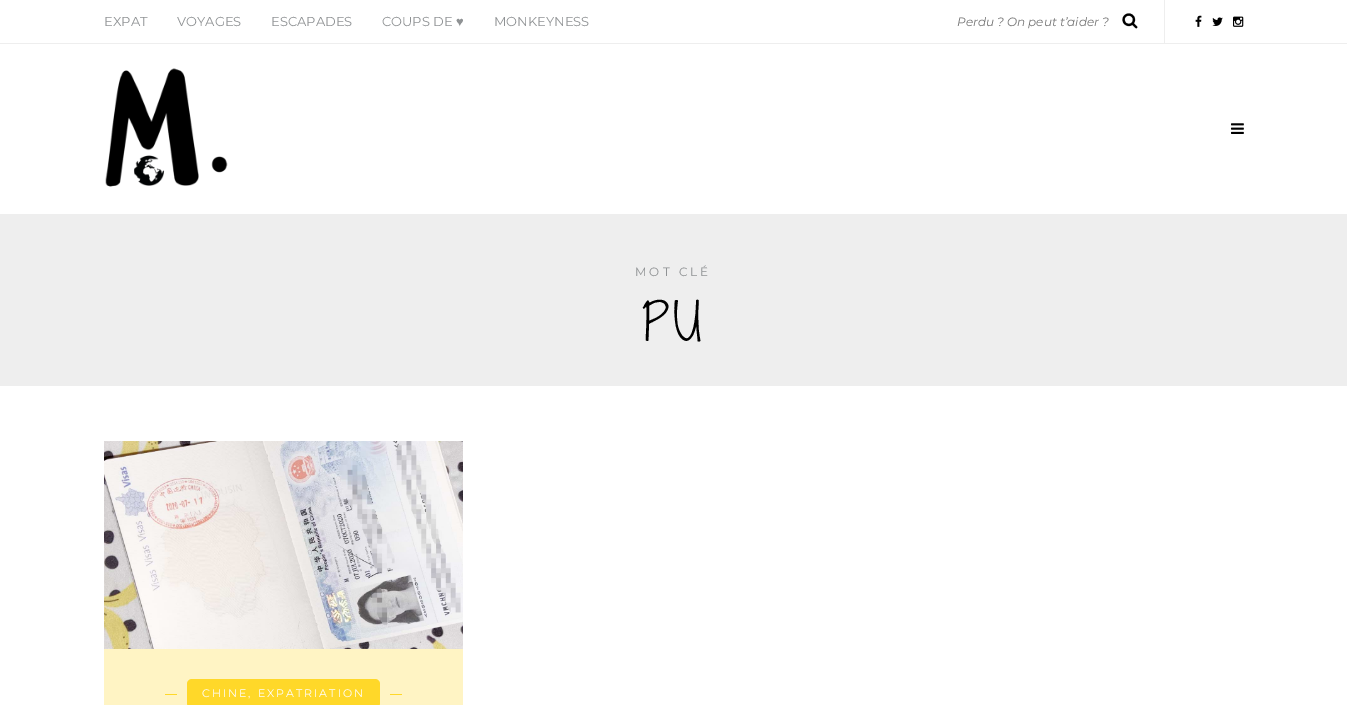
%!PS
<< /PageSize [1347 705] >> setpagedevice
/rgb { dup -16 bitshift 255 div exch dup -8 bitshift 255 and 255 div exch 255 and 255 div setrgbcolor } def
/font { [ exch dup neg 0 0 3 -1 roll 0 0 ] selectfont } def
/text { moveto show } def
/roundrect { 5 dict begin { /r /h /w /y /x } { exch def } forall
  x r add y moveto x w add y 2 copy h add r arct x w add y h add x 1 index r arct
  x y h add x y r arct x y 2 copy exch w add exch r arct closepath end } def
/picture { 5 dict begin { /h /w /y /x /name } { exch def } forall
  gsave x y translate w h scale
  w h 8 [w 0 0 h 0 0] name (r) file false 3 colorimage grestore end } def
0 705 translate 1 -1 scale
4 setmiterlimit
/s1 { /Montserrat-Regular 13 font 16#8F9294 rgb } def
/s2 { /LiberationSerif-Regular 13 font 16#8F9294 rgb } def
/s3 { /Montserrat-Italic 12 font 16#757575 rgb } def
16#FFFFFF rgb
0 0 1347 705 rectfill
16#EEEEEE rgb
0 43 1347 1 rectfill
s1
(EXPAT) 104 26 text
(VOYAGES) 177 26 text
(ESCAPADES) 271 26 text
(COUPS DE) 382 26 text
s2
(♥) 456 26 text
s1
(MONKEYNESS) 494 26 text
s3
(Perdu ? On peut t’aider ?) 957 26 text
(pic1.raw) 1122 13 16 16 picture
16#EEEEEE rgb
1164 0 1 43 rectfill
(pic2.raw) 1195 15 7 12 picture
(pic3.raw) 1212 17 11 9 picture
(pic4.raw) 1233 16 11 11 picture
(pic5.raw) 105 68 123 119 picture
(pic6.raw) 1231 123 13 11 picture
0 214 1347 172 rectfill
/Montserrat-Regular 12 font
16#8F9294 rgb
635 276 moveto 3 0 (MOT CLÉ) ashow
/ShadowsIntoLightTwo-Light 50 font
16#000000 rgb
642 341 moveto 4 0 (PU) ashow
(pic7.raw) 104 441 359 208 picture
16#FFF4C4 rgb
104 649 359 56 rectfill
16#FFD829 rgb
187 679 193 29 5 roundrect fill
165 694 12 1 rectfill
/Montserrat-Regular 11 font
16#FFFFFF rgb
202 697 moveto 2 0 (CHINE, EXPATRIATION) ashow
16#FFD829 rgb
390 694 12 1 rectfill
showpage
